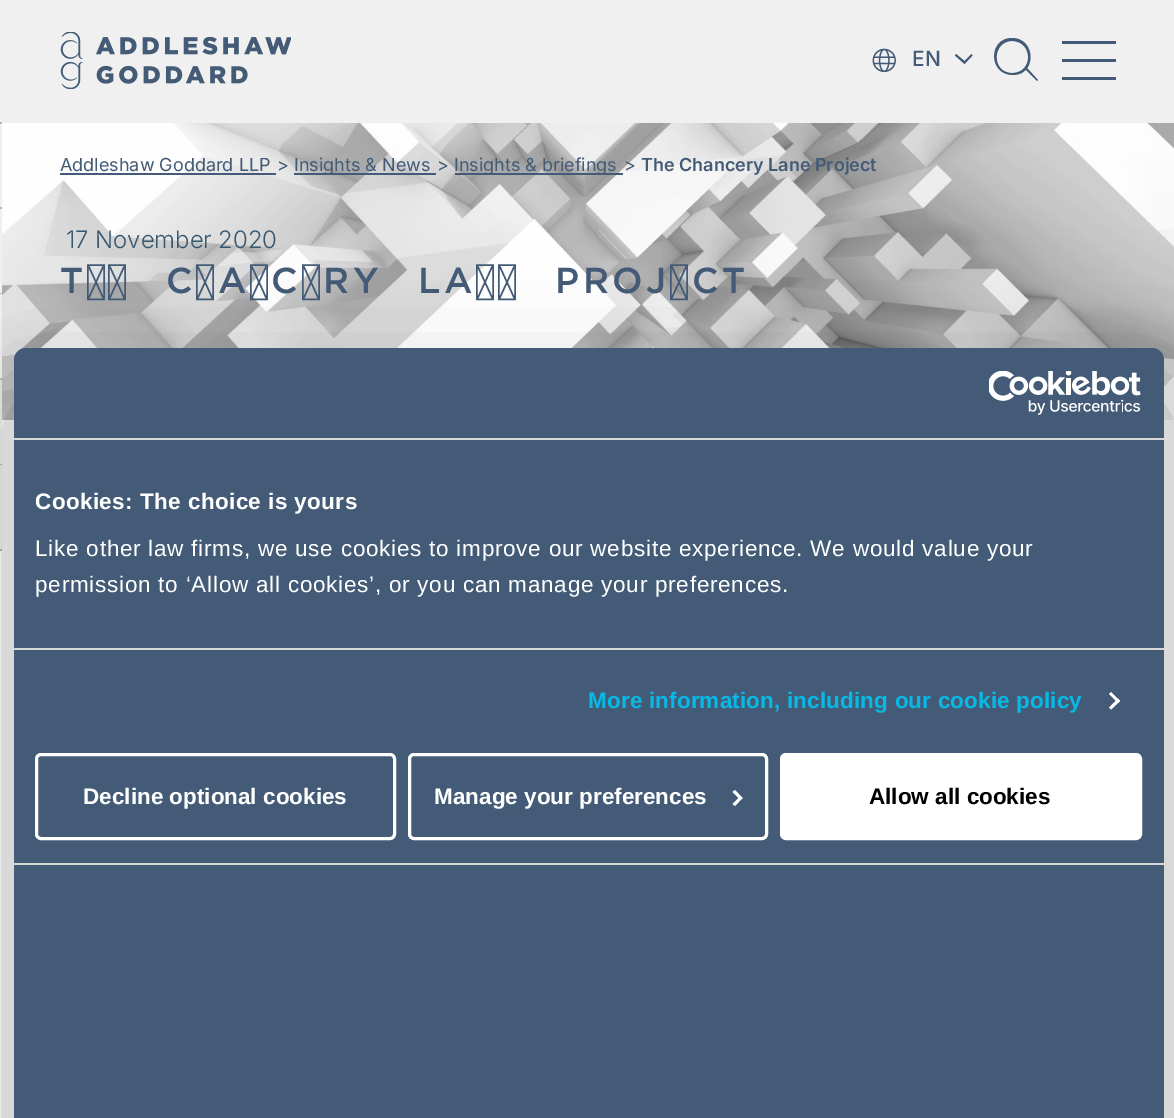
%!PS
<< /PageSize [1174 1118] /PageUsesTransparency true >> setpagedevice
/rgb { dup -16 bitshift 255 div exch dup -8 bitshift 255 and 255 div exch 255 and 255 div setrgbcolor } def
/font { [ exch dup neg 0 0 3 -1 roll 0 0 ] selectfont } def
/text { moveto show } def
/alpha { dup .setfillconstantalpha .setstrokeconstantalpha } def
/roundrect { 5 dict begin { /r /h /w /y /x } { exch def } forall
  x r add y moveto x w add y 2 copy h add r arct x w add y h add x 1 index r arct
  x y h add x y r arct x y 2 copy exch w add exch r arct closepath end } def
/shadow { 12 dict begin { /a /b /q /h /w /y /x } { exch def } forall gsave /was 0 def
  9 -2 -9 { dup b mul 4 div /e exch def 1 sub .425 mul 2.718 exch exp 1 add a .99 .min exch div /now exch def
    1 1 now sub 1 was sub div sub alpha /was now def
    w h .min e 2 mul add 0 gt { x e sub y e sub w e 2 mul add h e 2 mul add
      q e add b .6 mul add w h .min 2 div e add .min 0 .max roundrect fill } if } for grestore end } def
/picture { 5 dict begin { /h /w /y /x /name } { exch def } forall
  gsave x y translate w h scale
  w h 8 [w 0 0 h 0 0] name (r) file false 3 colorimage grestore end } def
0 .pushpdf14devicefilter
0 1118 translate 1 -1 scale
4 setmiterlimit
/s1 { /Inter-Medium 21 font 16#435B76 rgb } def
/s2 { /Inter-Regular 18 font 16#435B76 rgb } def
/s3 { /Inter-SemiBold 18 font 16#435B76 rgb } def
/s4 { /Inter-Light 24 font 16#37576F rgb } def
/s5 { /LiberationSans-Bold 22.5 font 16#FFFFFF rgb } def
/s6 { /LiberationSans-Bold 22.5 font 16#000000 rgb } def
16#FFFFFF rgb
0 0 1174 1118 rectfill
16#F0F0F0 rgb
0 0 1174 123 rectfill
(pic1.raw) 60 32 231 57 picture
(pic2.raw) 872 48 24 25 picture
s1
(EN) 912 66 text
964.5 64 moveto 955 55.5 lineto 956 54 lineto 964.5 61 lineto 971.5 54 lineto 972.5 55.5 lineto closepath fill
1012 41 moveto 992 41 991 73 1012 73 curveto 1034 73 1033 41 1012 41 curveto closepath 1012 38 moveto 1036 38 1037 75 1013 75 curveto 988 75 988 38 1012 38 curveto closepath 1037 81 moveto 1025 69 lineto 1026 67 lineto 1038 80 lineto closepath fill
1062 41 54 3 rectfill
1062 59 54 3 rectfill
1062 77 54 3 rectfill
16#F0F0F0 rgb
0 122 2 429 rectfill
16#B4B4B4 rgb
0 122 2 2 rectfill
0 207 2 2 rectfill
0 293 2 1 rectfill
0 378 2 2 rectfill
0 464 2 1 rectfill
0 549 2 2 rectfill
(pic3.raw) 2 123 1172 297 picture
s2
(Addleshaw Goddard LLP) 60 171 text
60 173 216 2 rectfill
(>) 277 171 text
294 173 142 2 rectfill
(Insights & News) 294 171 text
(>) 437 171 text
455 173 168 2 rectfill
(Insights & briefings) 454 171 text
(>) 624 171 text
s3
(The Chancery Lane Project) 641 171 text
s4
(17 November 2020) 66 248 text
/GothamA-Light 36 font
16#435B76 rgb
60 293 moveto 21.5 0 32 3.6 0 (THE CHANCERY LANE PROJECT) awidthshow
16#000000 rgb
14 396 1150 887 12 51 0.3 shadow
16#435B76 rgb
14 348 1150 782 12 roundrect fill
16#D6D6D6 rgb
14 438 1150 2 rectfill
(pic4.raw) 989 371 152 44 picture
14 648 1150 2 rectfill
/LiberationSans-Bold 22.5 font
16#FFFFFF rgb
35 509 moveto 0.4 0 (Cookies: The choice is yours) ashow
/LiberationSans-Regular 22.5 font
35 556 moveto 0.75 0 (Like other law firms, we use cookies to improve our website experience. We would value your) ashow
35 592 moveto 0.75 0 (permission to ‘Allow all cookies’, or you can manage your preferences.) ashow
/LiberationSans-Bold 22.5 font
16#08B8E5 rgb
588 708 moveto 0.15 0 (More information, including our cookie policy) ashow
16#FFFFFF rgb
1111 692 moveto 1120 701 lineto 1118 703 lineto 1109 694 lineto closepath fill
1118 698.5 moveto 1120 701 lineto 1111 709.5 lineto 1109 707.5 lineto closepath fill
16#D6D6D6 rgb
14 863 1150 2 rectfill
16#FFFFFF rgb
3 setlinewidth
36.5 754.5 358 84 4.5 roundrect stroke
(Decline optional cookies) 83 804 text
409.5 754.5 357 84 4.5 roundrect stroke
(Manage your preferences) 434 804 text
735 790 moveto 742.5 798 lineto 740.5 800 lineto 732.5 792 lineto closepath fill
740.5 796 moveto 742.5 798 lineto 735 806 lineto 732.5 804 lineto closepath fill
781.5 754.5 359 84 4.5 roundrect gsave fill grestore
stroke
s6
(Allow all cookies) 869 804 text
.poppdf14devicefilter showpage
